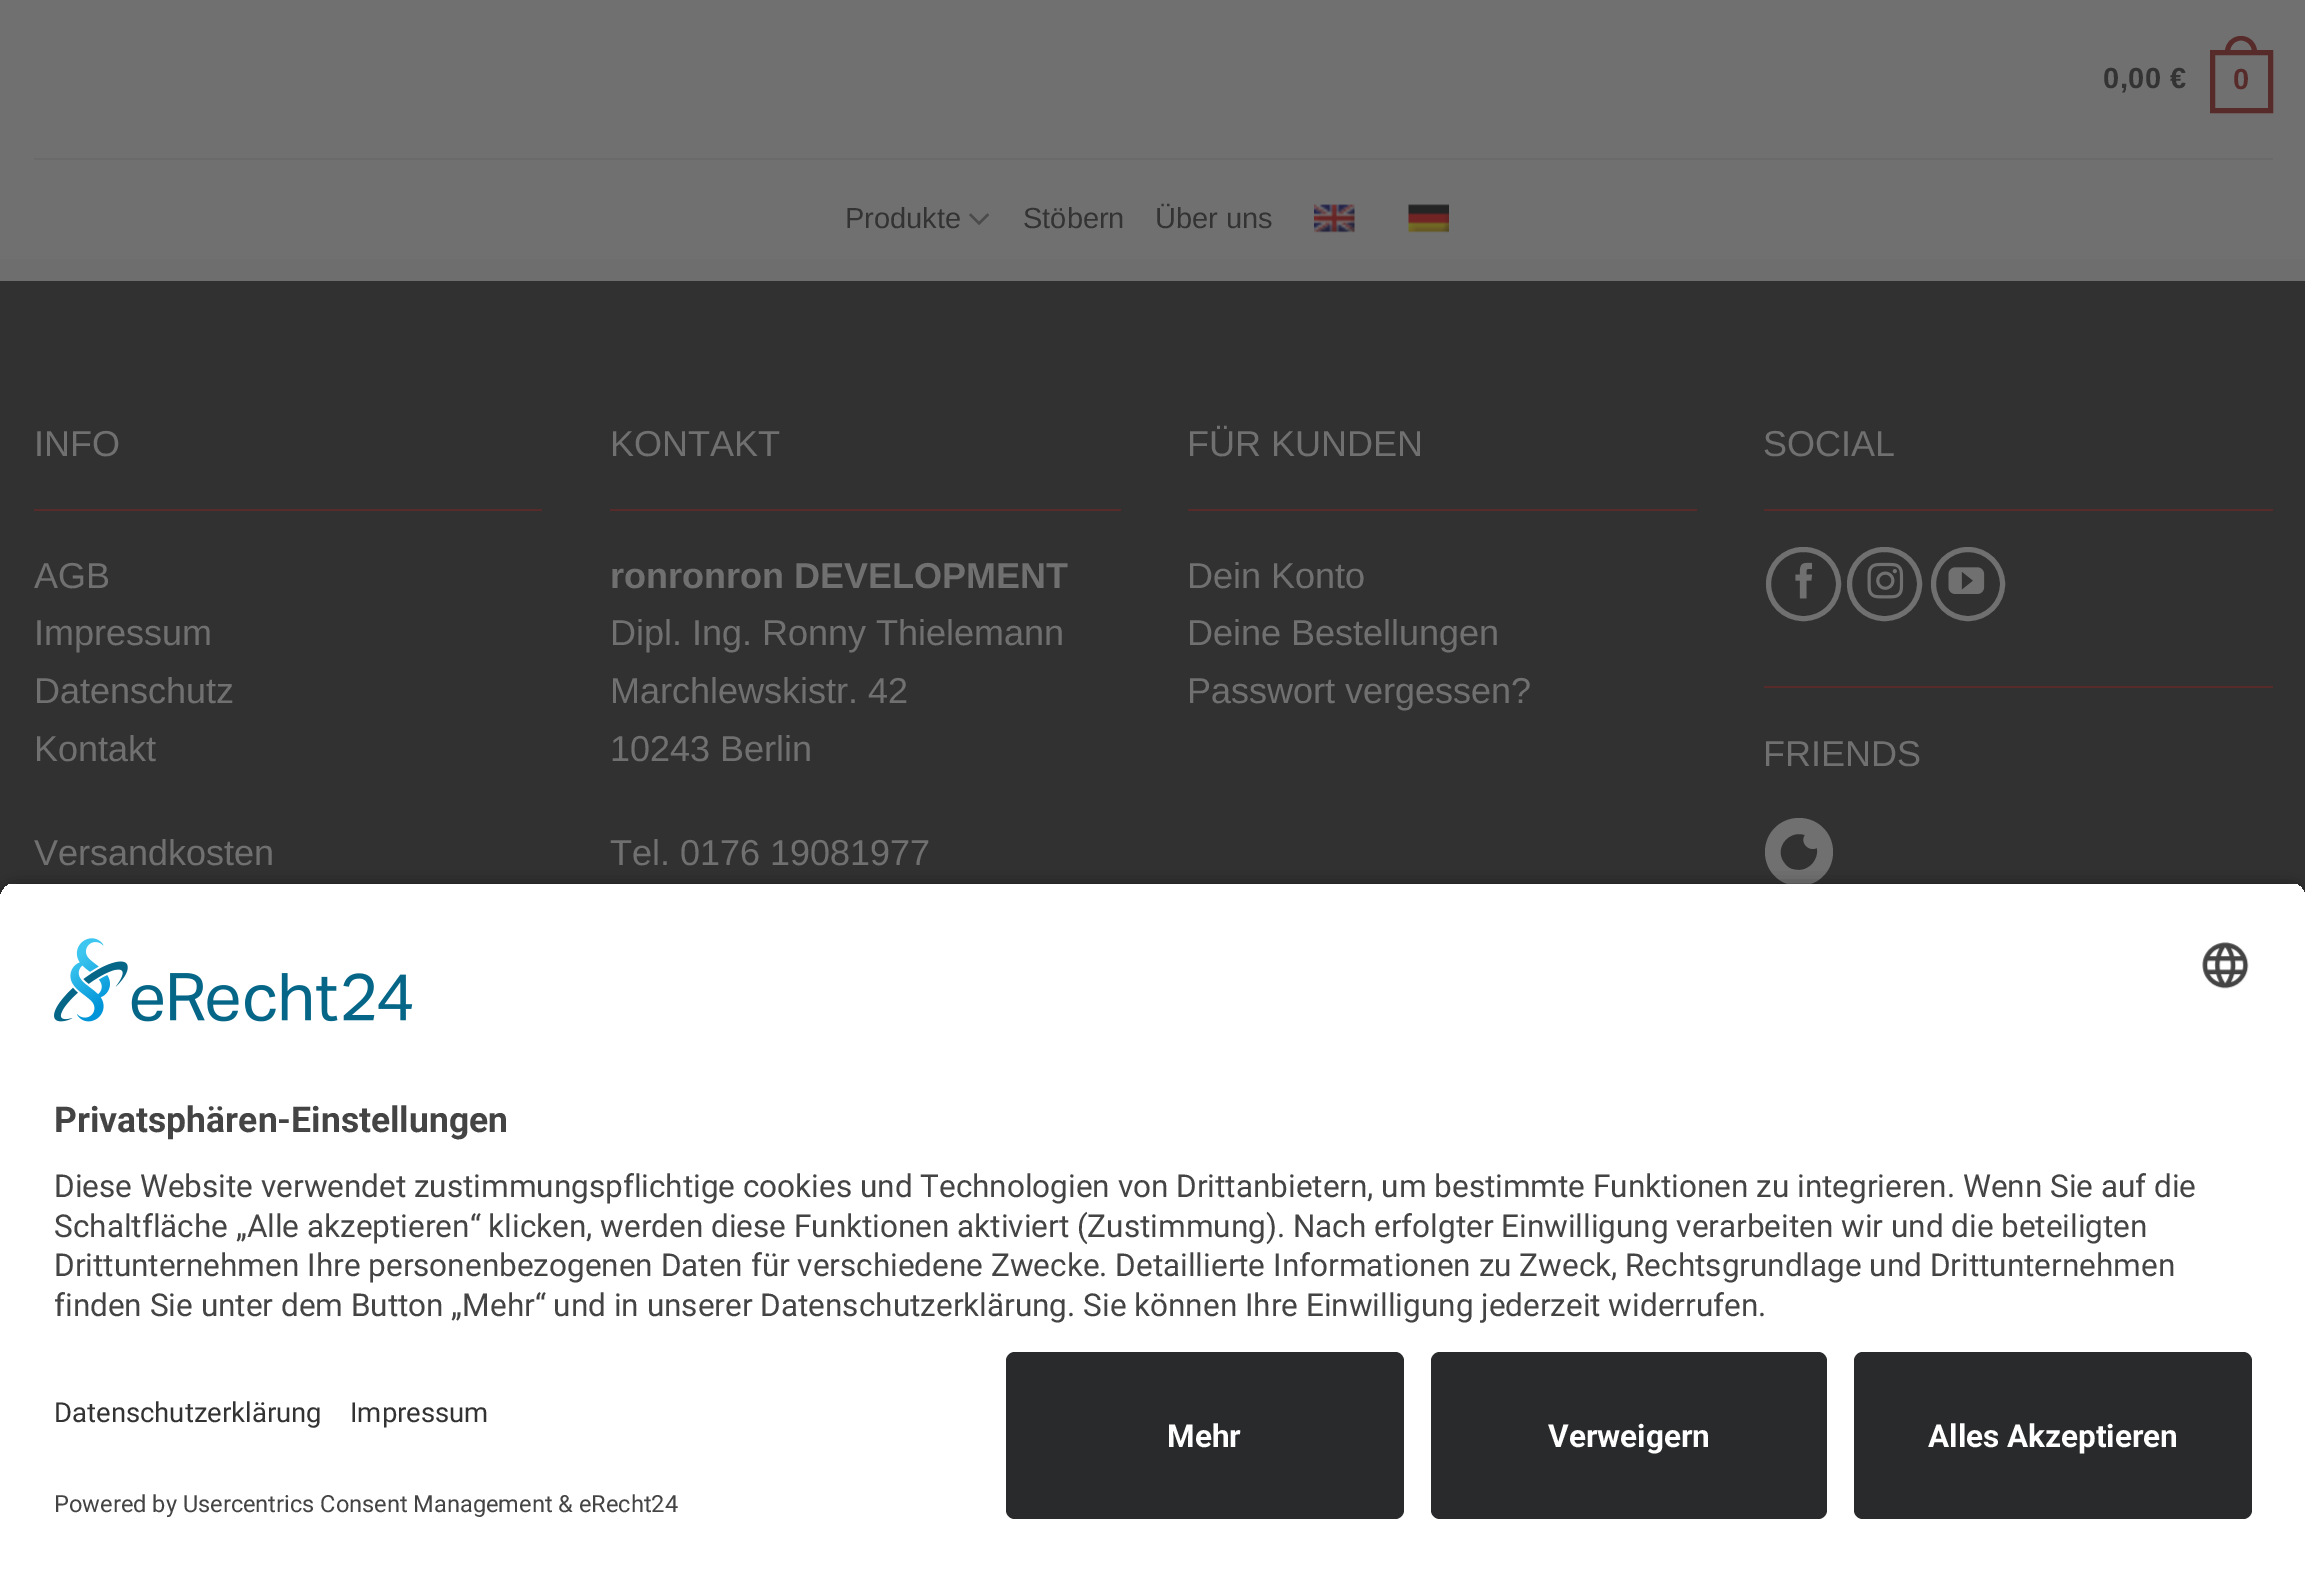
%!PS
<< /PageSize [2305 1572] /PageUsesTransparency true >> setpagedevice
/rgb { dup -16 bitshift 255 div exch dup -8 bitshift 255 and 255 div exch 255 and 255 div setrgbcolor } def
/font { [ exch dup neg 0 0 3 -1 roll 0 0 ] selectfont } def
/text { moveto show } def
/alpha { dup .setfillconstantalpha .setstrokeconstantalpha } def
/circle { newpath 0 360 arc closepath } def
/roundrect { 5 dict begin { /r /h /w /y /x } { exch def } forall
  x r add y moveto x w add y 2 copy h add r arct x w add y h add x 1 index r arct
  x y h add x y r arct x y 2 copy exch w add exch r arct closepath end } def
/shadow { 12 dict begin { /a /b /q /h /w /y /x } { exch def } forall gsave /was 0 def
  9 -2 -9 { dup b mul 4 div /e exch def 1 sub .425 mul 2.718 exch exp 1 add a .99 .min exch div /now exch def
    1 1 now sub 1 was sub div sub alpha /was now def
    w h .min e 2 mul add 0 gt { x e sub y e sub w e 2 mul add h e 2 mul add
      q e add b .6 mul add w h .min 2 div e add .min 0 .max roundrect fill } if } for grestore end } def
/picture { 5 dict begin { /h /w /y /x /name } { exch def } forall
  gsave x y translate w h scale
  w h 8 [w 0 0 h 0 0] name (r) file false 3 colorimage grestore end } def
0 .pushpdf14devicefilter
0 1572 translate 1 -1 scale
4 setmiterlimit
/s1 { /LiberationSans-Regular 29 font 16#333333 rgb } def
/s2 { /LiberationSans-Regular 36 font 16#707070 rgb } def
/s3 { /LiberationSans-Bold 36 font 16#707070 rgb } def
/s4 { /Roboto-Bold 35.5 font 16#444444 rgb } def
/s5 { /Roboto-Regular 31.5 font 16#444444 rgb } def
/s6 { /Roboto-Regular 27.5 font 16#333333 rgb } def
/s7 { /Roboto-Regular 23.6 font 16#444444 rgb } def
/s8 { /Roboto-Bold 31.5 font 16#FFFFFF rgb } def
16#707070 rgb
0 0 2305 1572 rectfill
/LiberationSans-Bold 29 font
16#333333 rgb
2103 88 moveto 0.5 0 (0,00 €) ashow
16#572B2A rgb
5 setlinewidth
2212.5 52.5 58 58 rectstroke
2241 36 moveto 2249.5 36 2257 43 2257 52 curveto 2257 54 lineto 2225 54 lineto 2225 52 lineto 2225 43 2232.5 36 2241 36 curveto closepath 2241 40.5 moveto 2247 40.5 2252 45.5 2252 52 curveto 2252 54 lineto 2230 54 lineto 2230 52 lineto 2230 45.5 2235 40.5 2241 40.5 curveto closepath eofill
2233 89 moveto 0.5 0 (0) ashow
0.1 alpha
16#333333 rgb
34 158 2239 2 rectfill
1 alpha
16#646464 rgb
0 259 2305 22 rectfill
0.8 alpha
16#707070 rgb
0 259 2305 22 rectfill
1 alpha
s1
(Produkte) 845 228 text
(pic1.raw) 969 213 20 12 picture
(Stöbern) 1023 228 text
(Über uns) 1155 228 text
(pic2.raw) 1314 204 41 29 picture
(pic3.raw) 1408 204 41 29 picture
16#323131 rgb
0 281 2305 619 rectfill
s2
(INFO) 34 456 text
16#572B2A rgb
34 509 508 2 rectfill
s2
(AGB) 34 588 text
(Impressum) 34 645 text
(Datenschutz) 34 703 text
(Kontakt) 34 761 text
(Versandkosten) 34 865 text
(KONTAKT) 610 456 text
16#572B2A rgb
610 509 511 2 rectfill
s3
(ronronron DEVELOPMENT) 610 588 text
s2
(Dipl. Ing. Ronny Thielemann) 610 645 text
(Marchlewskistr. 42) 610 703 text
(10243 Berlin) 610 761 text
(Tel. 0176 19081977) 610 865 text
(FÜR KUNDEN) 1187 456 text
16#572B2A rgb
1188 509 509 2 rectfill
s2
(Dein Konto) 1187 588 text
(Deine Bestellungen) 1187 645 text
(Passwort vergessen?) 1187 703 text
(SOCIAL) 1763 456 text
16#572B2A rgb
1764 509 509 2 rectfill
16#707070 rgb
1768.5 549.5 70 69 34.5 roundrect stroke
(pic4.raw) 1795 562 18 37 picture
1849.5 549.5 70 69 34.5 roundrect stroke
(pic5.raw) 1867 562 37 37 picture
1968 584 34.5 circle stroke
(pic6.raw) 1948 567 37 27 picture
16#572B2A rgb
1764 686 509 2 rectfill
s2
(FRIENDS) 1763 766 text
1799 818 moveto 1780 818 1765 833 1765 852 curveto 1765 871 1780 886 1799 886 curveto 1818 886 1833 871 1833 852 curveto 1833 833 1818 818 1799 818 curveto closepath 1799 870 moveto 1794 870 1789 869 1786 865 curveto 1772 851 1787 829 1805 835 curveto 1800 842 1808 852 1817 848 curveto 1819 859 1810 870 1799 870 curveto closepath fill
16#000000 rgb
0 889 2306 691 18 8 0.8 shadow
gsave
18 882 moveto 2288 882 lineto 2298 882 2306 890 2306 900 curveto 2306 1334 lineto 0 1334 lineto 0 900 lineto 0 890 8 882 18 882 curveto closepath clip newpath
16#FFFFFF rgb
0 884 2305 450 rectfill
grestore
(pic7.raw) 54 938 359 84 picture
(pic8.raw) 2202 942 47 47 picture
s4
(Privatsphären-Einstellungen) 54 1132 text
s5
(Diese Website verwendet zustimmungspflichtige cookies und Technologien von Drittanbietern, um bestimmte Funktionen zu integrieren. Wenn Sie auf die) 54 1197 text
(Schaltfläche „Alle akzeptieren“ klicken, werden diese Funktionen aktiviert \(Zustimmung\). Nach erfolgter Einwilligung verarbeiten wir und die beteiligten) 54 1237 text
(Drittunternehmen Ihre personenbezogenen Daten für verschiedene Zwecke. Detaillierte Informationen zu Zweck, Rechtsgrundlage und Drittunternehmen) 54 1276 text
(finden Sie unter dem Button „Mehr“ und in unserer Datenschutzerklärung. Sie können Ihre Einwilligung jederzeit widerrufen.) 54 1316 text
16#FFFFFF rgb
0 1334 2305 238 rectfill
s6
(Datenschutzerklärung) 54 1422 text
(Impressum) 350 1422 text
s7
(Powered by Usercentrics Consent Management & eRecht24) 54 1512 text
16#292A2B rgb
1006 1352 398 167 9 roundrect fill
s8
(Mehr) 1167 1447 text
16#292A2B rgb
1431 1352 396 167 9 roundrect fill
s8
(Verweigern) 1548 1447 text
16#292A2B rgb
1854 1352 398 167 9 roundrect fill
s8
(Alles Akzeptieren) 1928 1447 text
.poppdf14devicefilter showpage
